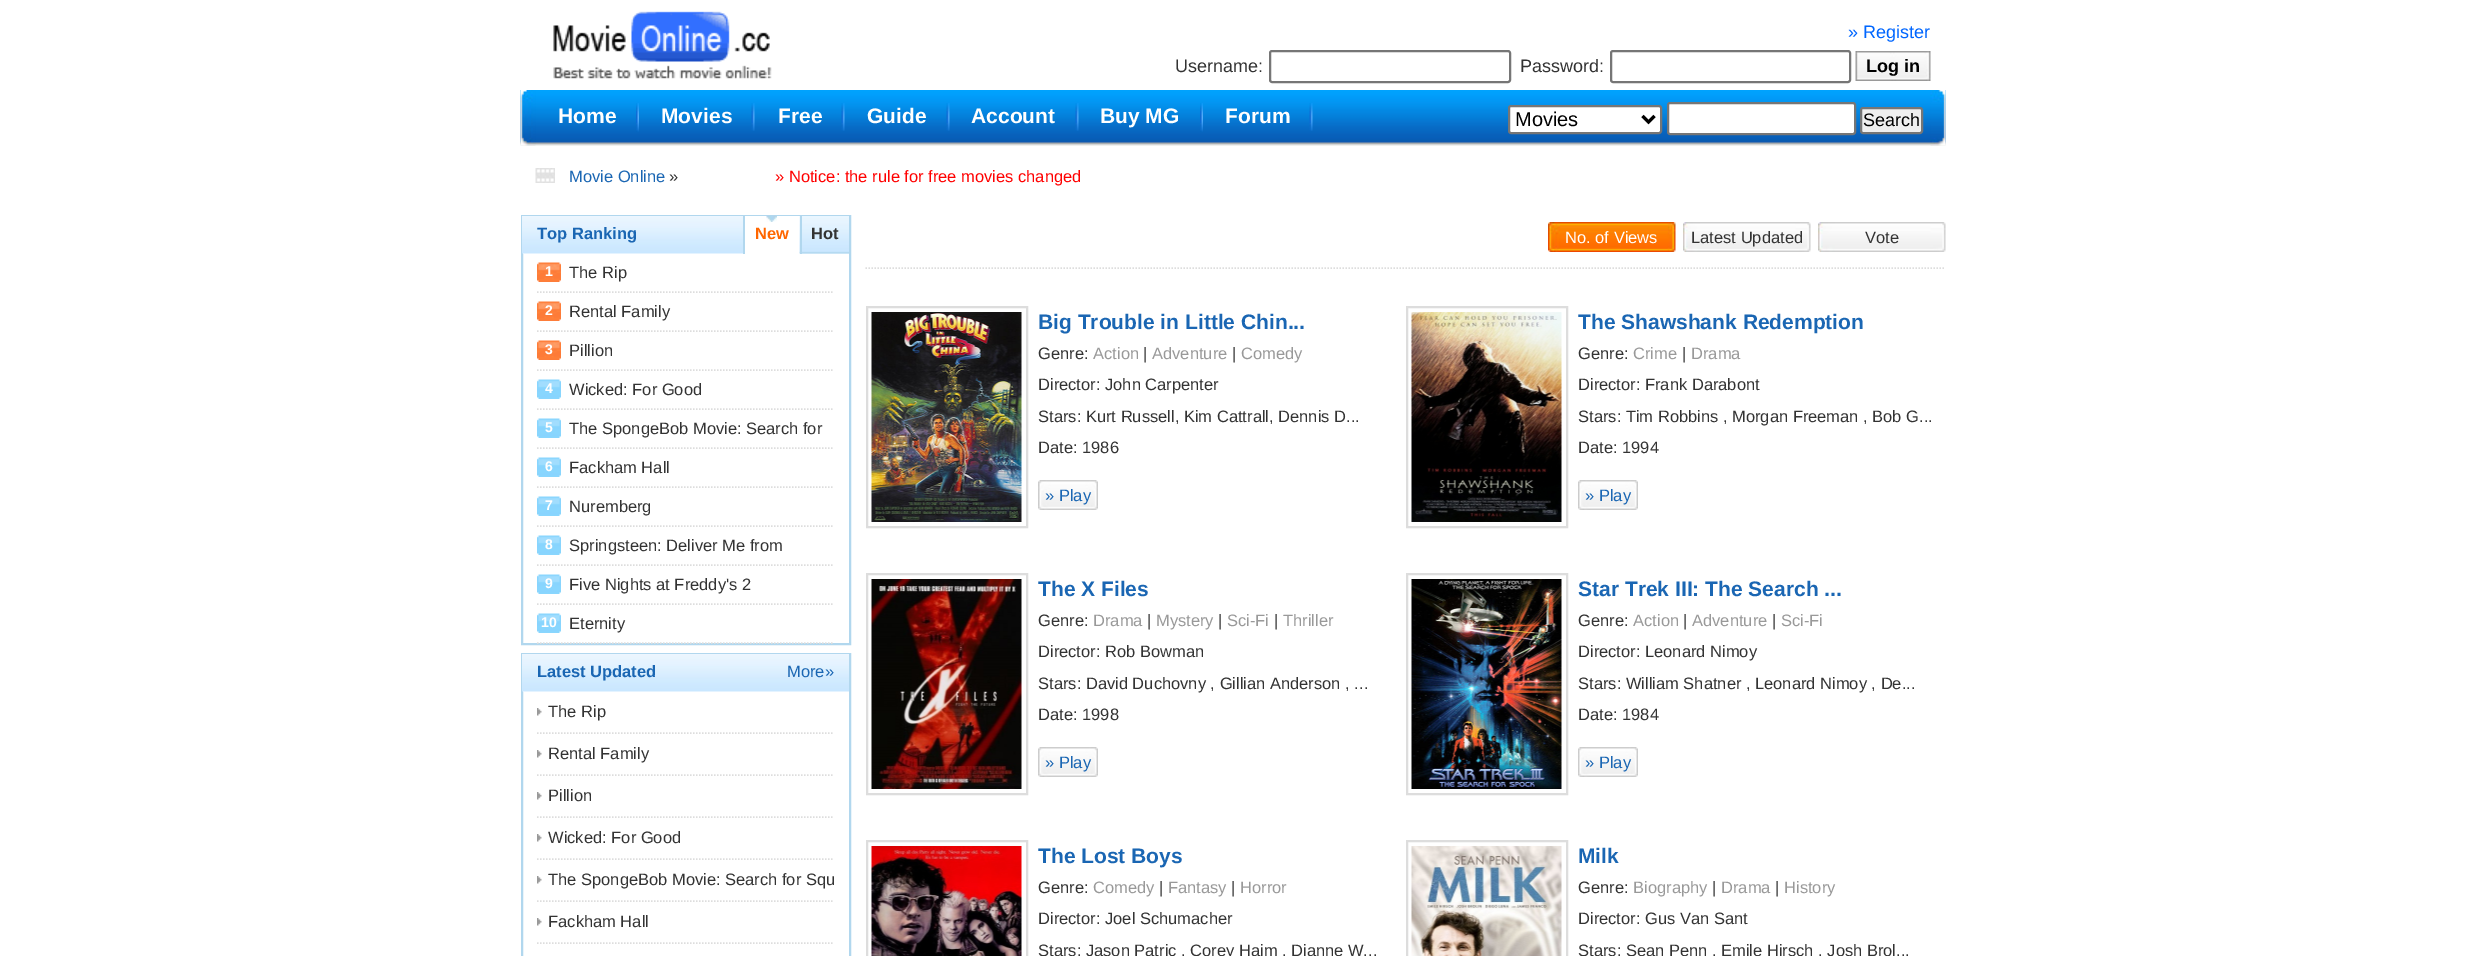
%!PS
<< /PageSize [2466 956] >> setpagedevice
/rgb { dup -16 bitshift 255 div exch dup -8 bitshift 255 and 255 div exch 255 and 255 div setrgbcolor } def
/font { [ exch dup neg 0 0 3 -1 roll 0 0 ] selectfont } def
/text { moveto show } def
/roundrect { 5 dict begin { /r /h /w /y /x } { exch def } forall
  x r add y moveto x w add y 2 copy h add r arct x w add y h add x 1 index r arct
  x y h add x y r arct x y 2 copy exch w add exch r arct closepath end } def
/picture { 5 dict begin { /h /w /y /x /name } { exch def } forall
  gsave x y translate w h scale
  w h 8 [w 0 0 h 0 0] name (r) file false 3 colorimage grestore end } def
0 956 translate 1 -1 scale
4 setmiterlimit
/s1 { /LiberationSans-Regular 18 font 16#0066FF rgb } def
/s2 { /LiberationSans-Regular 18 font 16#333333 rgb } def
/s3 { /LiberationSans-Bold 18 font 16#000000 rgb } def
/s4 { /LiberationSans-Bold 21 font 16#FFFFFF rgb } def
/s5 { /LiberationSans-Regular 20 font 16#000000 rgb } def
/s6 { /LiberationSans-Regular 18 font 16#000000 rgb } def
/s7 { /LiberationSans-Regular 16.5 font 16#1A66B3 rgb } def
/s8 { /LiberationSans-Regular 16.5 font 16#333333 rgb } def
/s9 { /LiberationSans-Regular 16.5 font 16#FF0000 rgb } def
/s10 { /LiberationSans-Bold 16.5 font 16#1A66B3 rgb } def
/s11 { /LiberationSans-Bold 16.5 font 16#FF6600 rgb } def
/s12 { /LiberationSans-Bold 16.5 font 16#333333 rgb } def
/s13 { /LiberationSans-Bold 14 font 16#FFFFFF rgb } def
/s14 { /LiberationSans-Regular 16.5 font 16#FFFFFF rgb } def
/s15 { /LiberationSans-Bold 21 font 16#1A66B3 rgb } def
/s16 { /LiberationSans-Regular 16.5 font 16#999999 rgb } def
16#FFFFFF rgb
0 0 2466 956 rectfill
(pic1.raw) 553 11 219 68 picture
s1
(» Register) 1848 38 text
s2
(Username:) 1175 72 text
16#767676 rgb
2 setlinewidth
1270 51 240 31 2 roundrect stroke
s2
(Password:) 1520 72 text
16#767676 rgb
1611 51 239 31 2 roundrect stroke
(pic2.raw) 1855 51 76 30 picture
s3
(Log in) 1866 72 text
(pic3.raw) 520 90 1426 56 picture
(pic4.raw) 520 90 16 56 picture
(pic5.raw) 1930 90 16 56 picture
(pic6.raw) 636 103 3 29 picture
s4
(Home) 558 123 text
(pic7.raw) 751 103 4 28 picture
(Movies) 661 123 text
(pic7.raw) 841 103 4 28 picture
(Free) 778 123 text
(pic7.raw) 946 103 4 28 picture
(Guide) 867 123 text
(pic7.raw) 1075 103 4 28 picture
(Account) 971 123 text
(pic8.raw) 1200 103 3 29 picture
(Buy MG) 1100 123 text
(pic7.raw) 1309 103 4 28 picture
(Forum) 1225 123 text
1509 106 152 27 2 roundrect gsave fill grestore
16#767676 rgb
stroke
16#000000 rgb
3 setlinewidth
1642.5 116 moveto 1648.5 122 lineto 1654.5 116 lineto stroke
s5
(Movies) 1515 126 text
16#FFFFFF rgb
1668 103 187 31 2 roundrect gsave fill grestore
16#767676 rgb
2 setlinewidth
stroke
16#EFEFEF rgb
1861 108 61 25 2 roundrect gsave fill grestore
16#767676 rgb
stroke
s6
(Search) 1863 126 text
(pic9.raw) 535 168 20 15 picture
s7
(Movie Online) 569 182 text
s8
(») 669 182 text
s9
(» Notice: the rule for free movies changed) 775 182 text
16#B1D7EE rgb
522 216 328 428 rectstroke
(pic10.raw) 522 216 327 38 picture
s10
(Top Ranking) 537 239 text
16#FFFFFF rgb
745 216 55 38 rectfill
(pic11.raw) 766 216 11 6 picture
16#B1D7EE rgb
743 216 2 38 rectfill
s11
(New) 755 239 text
(pic12.raw) 799 216 50 38 picture
16#B1D7EE rgb
800 216 2 38 rectfill
s12
(Hot) 811 239 text
16#DDDDDD rgb
1.5 setlinewidth
[1.5 1.5] 0 setdash
537 292 moveto 834 292 lineto stroke
(pic13.raw) 537 262 24 20 picture
s13
(1) 545 276 text
s8
(The Rip) 569 278 text
16#DDDDDD rgb
537 331 moveto 834 331 lineto stroke
(pic13.raw) 537 301 24 20 picture
s13
(2) 545 315 text
s8
(Rental Family) 569 317 text
16#DDDDDD rgb
537 370 moveto 834 370 lineto stroke
(pic13.raw) 537 340 24 20 picture
s13
(3) 545 354 text
s8
(Pillion) 569 356 text
16#DDDDDD rgb
537 409 moveto 834 409 lineto stroke
(pic14.raw) 537 379 24 20 picture
s13
(4) 545 393 text
s8
(Wicked: For Good) 569 395 text
16#DDDDDD rgb
537 448 moveto 834 448 lineto stroke
(pic14.raw) 537 418 24 20 picture
s13
(5) 545 432 text
s8
(The SpongeBob Movie: Search for) 569 434 text
16#DDDDDD rgb
537 487 moveto 834 487 lineto stroke
(pic14.raw) 537 457 24 20 picture
s13
(6) 545 471 text
s8
(Fackham Hall) 569 473 text
16#DDDDDD rgb
537 526 moveto 834 526 lineto stroke
(pic14.raw) 537 496 24 20 picture
s13
(7) 545 510 text
s8
(Nuremberg) 569 512 text
16#DDDDDD rgb
537 565 moveto 834 565 lineto stroke
(pic14.raw) 537 535 24 20 picture
s13
(8) 545 549 text
s8
(Springsteen: Deliver Me from) 569 551 text
16#DDDDDD rgb
537 604 moveto 834 604 lineto stroke
(pic14.raw) 537 574 24 20 picture
s13
(9) 545 588 text
s8
(Five Nights at Freddy's 2) 569 590 text
16#DDDDDD rgb
537 643 moveto 834 643 lineto stroke
(pic14.raw) 537 613 24 20 picture
s13
(10) 541 627 text
s8
(Eternity) 569 629 text
16#B1D7EE rgb
2 setlinewidth
[] 0 setdash
522 654 328 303 rectstroke
(pic10.raw) 522 654 327 38 picture
s10
(Latest Updated) 537 677 text
s7
(More») 787 677 text
(pic15.raw) 537 708 5 8 picture
16#DDDDDD rgb
1.5 setlinewidth
[1.5 1.5] 0 setdash
537 733 moveto 834 733 lineto stroke
s8
(The Rip) 548 717 text
(pic15.raw) 537 750 5 8 picture
16#DDDDDD rgb
537 775 moveto 834 775 lineto stroke
s8
(Rental Family) 548 759 text
(pic15.raw) 537 792 5 8 picture
16#DDDDDD rgb
537 817 moveto 834 817 lineto stroke
s8
(Pillion) 548 801 text
(pic15.raw) 537 834 5 8 picture
16#DDDDDD rgb
537 859 moveto 834 859 lineto stroke
s8
(Wicked: For Good) 548 843 text
(pic15.raw) 537 876 5 8 picture
16#DDDDDD rgb
537 901 moveto 834 901 lineto stroke
s8
(The SpongeBob Movie: Search for Squ) 548 885 text
(pic15.raw) 537 918 5 8 picture
16#DDDDDD rgb
537 943 moveto 834 943 lineto stroke
s8
(Fackham Hall) 548 927 text
16#DDDDDD rgb
865.5 268 moveto 1945.5 268 lineto stroke
(pic16.raw) 1548 222 128 30 picture
s14
(No. of Views) 1565 243 text
(pic17.raw) 1683 222 128 30 picture
s8
(Latest Updated) 1691 243 text
(pic18.raw) 1818 222 128 30 picture
(Vote) 1865 243 text
16#DDDDDD rgb
2 setlinewidth
[] 0 setdash
867 307 160 220 rectstroke
(pic19.raw) 871 312 151 210 picture
s15
(Big Trouble in Little Chin...) 1038 329 text
s8
(Genre:) 1038 359 text
s16
(Action) 1093 359 text
s8
(|) 1143 359 text
s16
(Adventure) 1152 359 text
s8
(|) 1232 359 text
s16
(Comedy) 1241 359 text
s8
(Director: John Carpenter) 1038 390 text
(Stars: Kurt Russell, Kim Cattrall, Dennis D...) 1038 422 text
(Date: 1986) 1038 453 text
(pic20.raw) 1038 480 60 30 picture
s7
(» Play) 1045 501 text
16#DDDDDD rgb
1407 307 160 220 rectstroke
(pic21.raw) 1411 312 151 210 picture
s15
(The Shawshank Redemption) 1578 329 text
s8
(Genre:) 1578 359 text
s16
(Crime) 1633 359 text
s8
(|) 1682 359 text
s16
(Drama) 1691 359 text
s8
(Director: Frank Darabont) 1578 390 text
(Stars: Tim Robbins , Morgan Freeman , Bob G...) 1578 422 text
(Date: 1994) 1578 453 text
(pic22.raw) 1578 480 60 30 picture
s7
(» Play) 1585 501 text
16#DDDDDD rgb
867 574 160 220 rectstroke
(pic23.raw) 871 579 151 210 picture
s15
(The X Files) 1038 596 text
s8
(Genre:) 1038 626 text
s16
(Drama) 1093 626 text
s8
(|) 1147 626 text
s16
(Mystery) 1156 626 text
s8
(|) 1218 626 text
s16
(Sci-Fi) 1227 626 text
s8
(|) 1274 626 text
s16
(Thriller) 1283 626 text
s8
(Director: Rob Bowman) 1038 657 text
(Stars: David Duchovny , Gillian Anderson , ...) 1038 689 text
(Date: 1998) 1038 720 text
(pic20.raw) 1038 747 60 30 picture
s7
(» Play) 1045 768 text
16#DDDDDD rgb
1407 574 160 220 rectstroke
(pic24.raw) 1411 579 151 210 picture
s15
(Star Trek III: The Search ...) 1578 596 text
s8
(Genre:) 1578 626 text
s16
(Action) 1633 626 text
s8
(|) 1683 626 text
s16
(Adventure) 1692 626 text
s8
(|) 1772 626 text
s16
(Sci-Fi) 1781 626 text
s8
(Director: Leonard Nimoy) 1578 657 text
(Stars: William Shatner , Leonard Nimoy , De...) 1578 689 text
(Date: 1984) 1578 720 text
(pic22.raw) 1578 747 60 30 picture
s7
(» Play) 1585 768 text
16#DDDDDD rgb
867 841 160 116 rectstroke
(pic25.raw) 871 846 151 110 picture
s15
(The Lost Boys) 1038 863 text
s8
(Genre:) 1038 893 text
s16
(Comedy) 1093 893 text
s8
(|) 1159 893 text
s16
(Fantasy) 1168 893 text
s8
(|) 1231 893 text
s16
(Horror) 1240 893 text
s8
(Director: Joel Schumacher) 1038 924 text
(Stars: Jason Patric , Corey Haim , Dianne W...) 1038 956 text
16#DDDDDD rgb
1407 841 160 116 rectstroke
(pic26.raw) 1411 846 151 110 picture
s15
(Milk) 1578 863 text
s8
(Genre:) 1578 893 text
s16
(Biography) 1633 893 text
s8
(|) 1712 893 text
s16
(Drama) 1721 893 text
s8
(|) 1775 893 text
s16
(History) 1784 893 text
s8
(Director: Gus Van Sant) 1578 924 text
(Stars: Sean Penn , Emile Hirsch , Josh Brol...) 1578 956 text
showpage
